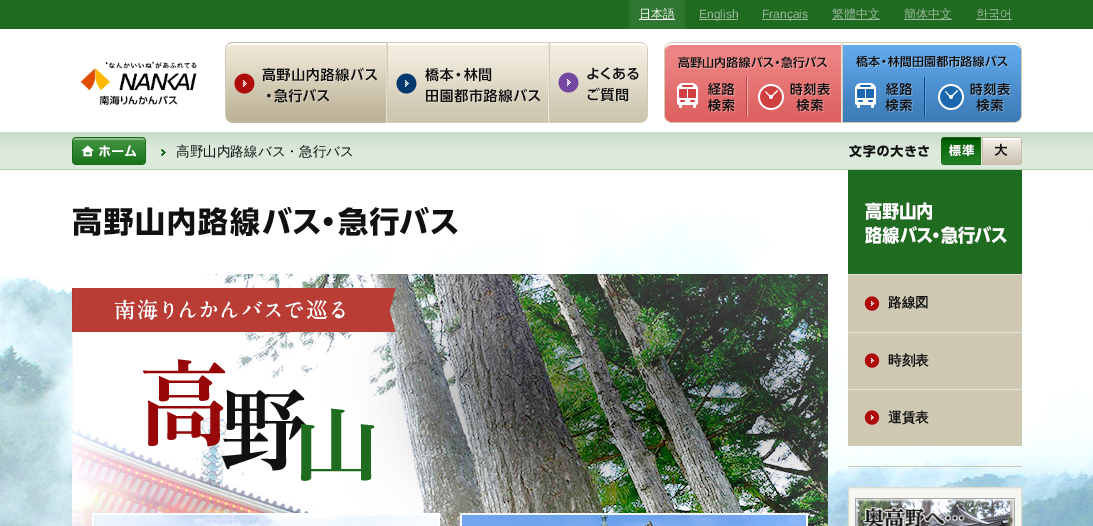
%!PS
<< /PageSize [1093 526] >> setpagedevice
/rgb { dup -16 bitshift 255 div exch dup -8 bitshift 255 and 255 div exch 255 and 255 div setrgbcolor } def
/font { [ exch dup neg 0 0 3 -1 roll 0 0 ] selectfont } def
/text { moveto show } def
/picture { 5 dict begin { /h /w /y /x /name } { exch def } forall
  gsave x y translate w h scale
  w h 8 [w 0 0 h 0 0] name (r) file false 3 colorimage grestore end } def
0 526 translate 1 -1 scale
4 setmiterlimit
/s1 { /WenQuanYiZenHei-Medium 12 font 16#FFFFFF rgb } def
/s2 { /LiberationSans-Regular 12 font 16#9BB59C rgb } def
/s3 { /WenQuanYiZenHei-Medium 12 font 16#9BB59C rgb } def
/s4 { /WenQuanYiZenHei-Medium 13.6 font 16#111111 rgb } def
/s5 { /WenQuanYiZenHei-Bold 13.6 font 16#111111 rgb } def
16#FFFFFF rgb
0 0 1093 526 rectfill
(pic1.raw) 0 209 1093 317 picture
16#1F6C20 rgb
0 0 1093 29 rectfill
16#2F7630 rgb
629 0 56 29 rectfill
16#FFFFFF rgb
639 19 36 1 rectfill
s1
(日本語) 639 18 text
16#9BB59C rgb
699 19 39 1 rectfill
s2
(English) 699 18 text
762 19 46 1 rectfill
(Français) 762 18 text
832 19 48 1 rectfill
s3
(繁體中文) 832 18 text
904 19 48 1 rectfill
(簡体中文) 904 18 text
976 19 36 1 rectfill
(한국어) 976 18 text
(pic2.raw) 80 61 117 44 picture
(pic3.raw) 225 42 162 81 picture
(pic4.raw) 387 42 162 81 picture
(pic5.raw) 549 42 99 81 picture
(pic6.raw) 664 42 178 35 picture
(pic7.raw) 664 77 83 46 picture
(pic8.raw) 665 77 82 45 picture
(pic9.raw) 747 77 95 46 picture
(pic10.raw) 747 77 94 45 picture
(pic11.raw) 842 42 180 35 picture
(pic12.raw) 842 77 83 46 picture
(pic13.raw) 843 77 82 45 picture
(pic14.raw) 925 77 97 46 picture
(pic15.raw) 925 77 96 45 picture
(pic16.raw) 0 132 1093 37 picture
16#B1CEB2 rgb
0 169 1093 1 rectfill
(pic17.raw) 161 149 5 7 picture
(pic18.raw) 72 137 74 28 picture
s4
(高野山内路線バス・急行バス) 176 156 text
(pic19.raw) 849 145 80 13 picture
(pic20.raw) 941 137 40 28 picture
(pic21.raw) 982 137 40 28 picture
(pic22.raw) 73 207 385 29 picture
(pic23.raw) 72 274 756 252 picture
(pic24.raw) 72 288 324 193 picture
(pic25.raw) 92 513 348 13 picture
(pic26.raw) 460 513 348 13 picture
(pic27.raw) 848 170 174 104 picture
16#CFC8B3 rgb
848 275 174 57 rectfill
16#E7E4D9 rgb
848 274 174 1 rectfill
(pic28.raw) 864 296 16 15 picture
s5
(路線図) 888 307 text
16#CFC8B3 rgb
848 333 174 56 rectfill
16#E7E4D9 rgb
848 332 174 1 rectfill
(pic28.raw) 864 353 16 15 picture
s5
(時刻表) 888 365 text
16#CFC8B3 rgb
848 390 174 56 rectfill
16#E7E4D9 rgb
848 389 174 1 rectfill
(pic28.raw) 864 410 16 15 picture
s5
(運賃表) 888 422 text
16#CFC8B3 rgb
848 466 174 1 rectfill
16#F6F7F2 rgb
848.5 487.5 moveto 1021.5 487.5 lineto 1021.5 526.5 lineto 848.5 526.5 lineto closepath gsave fill grestore
16#DFDBCF rgb
stroke
(pic29.raw) 855 498 160 28 picture
showpage
